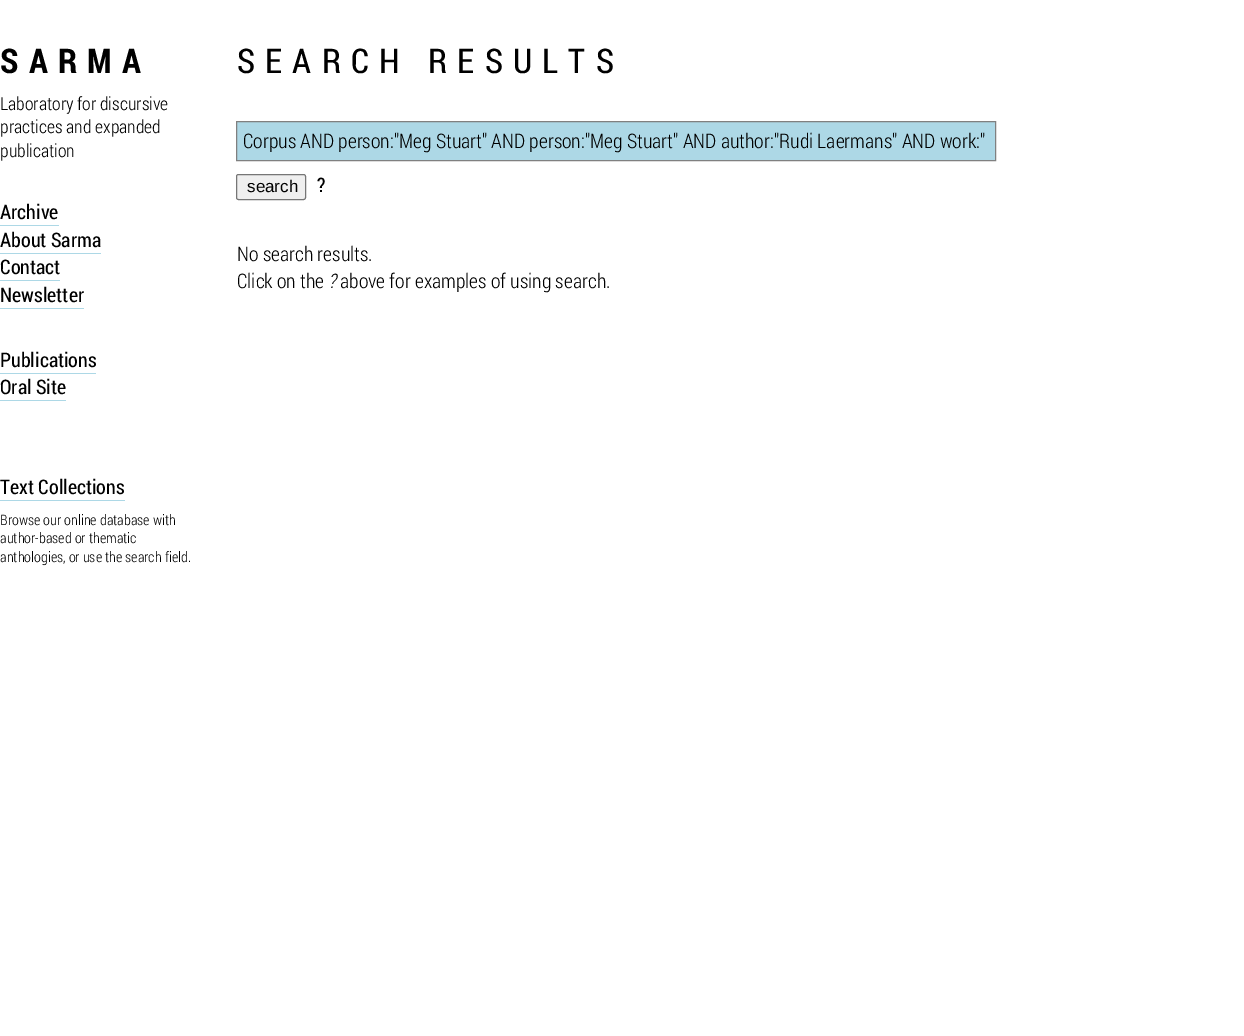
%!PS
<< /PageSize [1244 1036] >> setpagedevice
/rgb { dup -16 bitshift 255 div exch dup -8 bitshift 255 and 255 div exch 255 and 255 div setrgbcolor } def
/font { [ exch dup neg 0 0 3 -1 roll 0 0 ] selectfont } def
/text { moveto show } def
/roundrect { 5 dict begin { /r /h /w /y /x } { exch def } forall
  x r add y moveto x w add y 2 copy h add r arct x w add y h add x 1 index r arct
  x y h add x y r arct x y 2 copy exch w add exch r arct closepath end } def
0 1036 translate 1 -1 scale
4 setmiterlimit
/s1 { /RobotoCondensed-Light 18 font 16#000000 rgb } def
/s2 { /Roboto-Regular 20 font 16#000000 rgb } def
/s3 { /RobotoCondensed-Light 14.4 font 16#000000 rgb } def
/s4 { /RobotoCondensed-Light 20 font 16#000000 rgb } def
/s5 { /LiberationSans-Regular 17 font 16#000000 rgb } def
/s6 { /RobotoCondensed-LightItalic 20 font 16#000000 rgb } def
16#FFFFFF rgb
0 0 1244 1036 rectfill
/Roboto-Bold 34 font
16#000000 rgb
0 73 moveto 10.25 0 (SARMA) ashow
s1
(Laboratory for discursive) 0 110 text
(practices and expanded) 0 133 text
(publication) 0 157 text
s2
(Archive) 0 219 text
16#ADD8E6 rgb
0 225 59 1 rectfill
s2
(About Sarma) 0 247 text
16#ADD8E6 rgb
0 253 101 1 rectfill
s2
(Contact) 0 274 text
16#ADD8E6 rgb
0 280 60 1 rectfill
s2
(Newsletter) 0 302 text
16#ADD8E6 rgb
0 308 84 1 rectfill
s2
(Publications) 0 367 text
16#ADD8E6 rgb
0 373 96 1 rectfill
s2
(Oral Site) 0 394 text
16#ADD8E6 rgb
0 400 66 1 rectfill
s2
(Text Collections) 0 494 text
16#ADD8E6 rgb
0 500 125 1 rectfill
s3
(Browse our online database with) 0 525 text
(author-based or thematic) 0 543 text
(anthologies, or use the search field.) 0 562 text
/Roboto-Regular 34 font
237 73 moveto 10.25 0 (SEARCH RESULTS) ashow
16#ADD8E6 rgb
236.5 121.5 moveto 995.5 121.5 lineto 995.5 160.5 lineto 236.5 160.5 lineto closepath gsave fill grestore
16#808080 rgb
stroke
s4
(Corpus AND person:"Meg Stuart" AND person:"Meg Stuart" AND author:"Rudi Laermans" AND work:") 243 148 text
16#EFEFEF rgb
236.5 174.5 69 25 2 roundrect gsave fill grestore
16#767676 rgb
stroke
s5
(search) 247 192 text
s2
(?) 317 192 text
s4
(No search results.) 237 261 text
(Click on the) 237 288 text
s6
(?) 328 288 text
s4
(above for examples of using search.) 340 288 text
showpage
